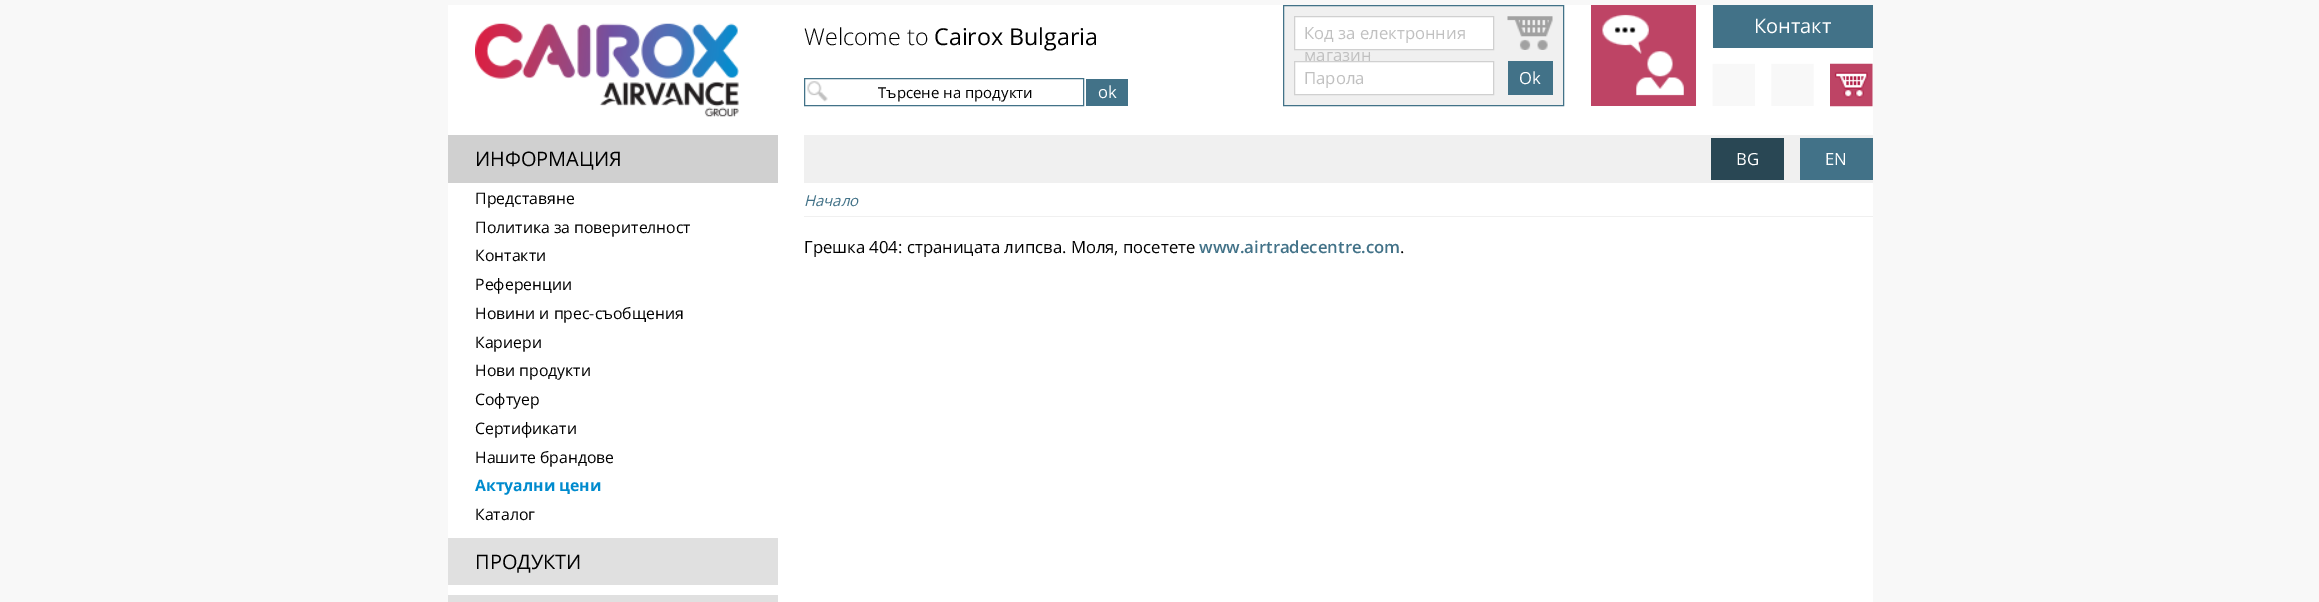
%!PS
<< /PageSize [2319 602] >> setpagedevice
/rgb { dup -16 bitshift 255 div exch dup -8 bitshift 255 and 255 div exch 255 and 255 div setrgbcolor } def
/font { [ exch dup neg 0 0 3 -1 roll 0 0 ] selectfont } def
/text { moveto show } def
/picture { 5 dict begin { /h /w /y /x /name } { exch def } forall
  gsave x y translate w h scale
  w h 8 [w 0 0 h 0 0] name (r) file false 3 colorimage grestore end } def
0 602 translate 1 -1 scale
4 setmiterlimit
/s1 { /OpenSans-Light 23.25 font 16#000000 rgb } def
/s2 { /OpenSans-Regular 23.25 font 16#000000 rgb } def
/s3 { /OpenSans-Regular 16.7 font 16#C0C0C0 rgb } def
/s4 { /OpenSans-Regular 16.7 font 16#FFFFFF rgb } def
/s5 { /OpenSans-Regular 20 font 16#FFFFFF rgb } def
/s6 { /OpenSans-Regular 15 font 16#000000 rgb } def
/s7 { /OpenSans-Regular 20 font 16#000000 rgb } def
/s8 { /OpenSans-Regular 15.8 font 16#000000 rgb } def
/s9 { /OpenSans-Bold 15.8 font 16#008BCE rgb } def
/s10 { /OpenSans-Italic 15 font 16#427288 rgb } def
/s11 { /OpenSans-Regular 16.7 font 16#000000 rgb } def
/s12 { /OpenSans-SemiBold 16.7 font 16#427288 rgb } def
16#F8F8F8 rgb
0 0 2319 602 rectfill
16#FFFFFF rgb
448 5 1425 597 rectfill
s1
(Welcome to) 804 45 text
s2
(Cairox Bulgaria) 934 45 text
16#F0F0F0 rgb
1283.5 5.5 moveto 1563.5 5.5 lineto 1563.5 105.5 lineto 1283.5 105.5 lineto closepath gsave fill grestore
16#427288 rgb
stroke
16#FFFFFF rgb
1295 17 198 32 rectfill
s3
(Код за електронния) 1304 39 text
(магазин) 1304 61 text
(pic1.raw) 1507 16 46 34 picture
16#FFFFFF rgb
1295 62 198 32 rectfill
s3
(Парола) 1304 84 text
16#D0D0D0 rgb
1294.5 16.5 199 33 rectstroke
1294.5 61.5 199 33 rectstroke
16#427288 rgb
1508 61 45 34 rectfill
s4
(Ok) 1519 84 text
(pic2.raw) 1696 5 177 101 picture
16#BE4465 rgb
1591 5 105 101 rectfill
(pic3.raw) 1602 14 82 82 picture
16#427288 rgb
1713 5 160 43 rectfill
s5
(Контакт) 1754 33 text
(pic4.raw) 1830 63 43 44 picture
(pic5.raw) 807 81 21 21 picture
16#427288 rgb
804.5 78.5 279 27 rectstroke
s6
(Търсене на продукти) 878 98 text
16#427288 rgb
1086 79 42 27 rectfill
s4
(ok) 1098 98 text
16#F0F0F0 rgb
804 135 1069 48 rectfill
16#294754 rgb
1711 138 73 42 rectfill
s4
(BG) 1736 165 text
16#427288 rgb
1800 138 73 42 rectfill
s4
(EN) 1825 165 text
(pic6.raw) 475 23 264 94 picture
16#D0D0D0 rgb
448 135 330 48 rectfill
s7
(ИНФОРМАЦИЯ) 475 166 text
s8
(Представяне) 475 204 text
(Политика за поверителност) 475 233 text
(Контакти) 475 261 text
(Референции) 475 290 text
(Новини и прес-съобщения) 475 319 text
(Кариери) 475 348 text
(Нови продукти) 475 376 text
(Софтуер) 475 405 text
(Сертификати) 475 434 text
(Нашите брандове) 475 463 text
s9
(Актуални цени) 475 491 text
s8
(Каталог) 475 520 text
16#E0E0E0 rgb
448 538 330 47 rectfill
s7
(ПРОДУКТИ) 475 569 text
16#E0E0E0 rgb
448 595 330 7 rectfill
16#F0F0F0 rgb
804 216 1069 1 rectfill
s10
(Начало) 804 206 text
s11
(Грешка 404: страницата липсва. Моля, посетете) 804 253 text
s12
(www.airtradecentre.com) 1199 253 text
s11
(.) 1400 253 text
showpage
